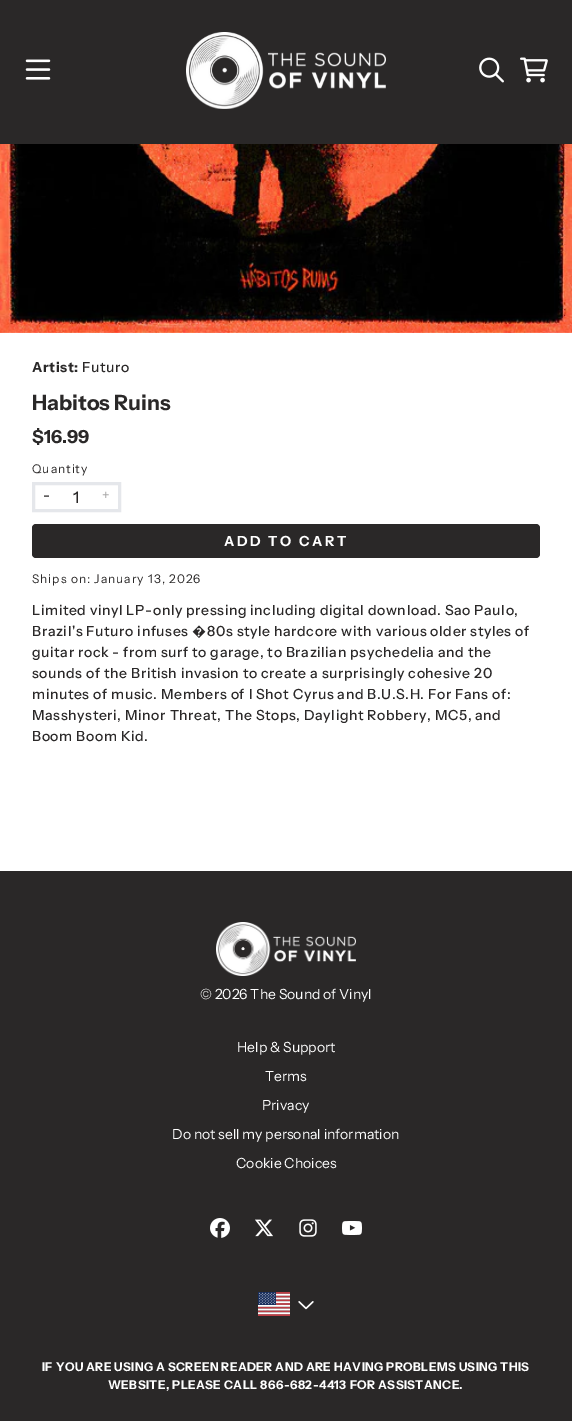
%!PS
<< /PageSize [572 1421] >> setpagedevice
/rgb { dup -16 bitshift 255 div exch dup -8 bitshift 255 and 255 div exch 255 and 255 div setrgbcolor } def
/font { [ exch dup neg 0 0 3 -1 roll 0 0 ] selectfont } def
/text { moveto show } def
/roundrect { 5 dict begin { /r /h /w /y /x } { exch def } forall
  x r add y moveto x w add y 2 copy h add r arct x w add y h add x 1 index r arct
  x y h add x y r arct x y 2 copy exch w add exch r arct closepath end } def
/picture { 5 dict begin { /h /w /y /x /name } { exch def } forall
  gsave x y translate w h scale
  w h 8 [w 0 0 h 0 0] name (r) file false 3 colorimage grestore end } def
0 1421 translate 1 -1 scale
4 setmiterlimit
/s1 { /InstrumentSans-Bold 21 font 16#2A2828 rgb } def
/s2 { /InstrumentSans-Bold 18 font 16#2A2828 rgb } def
/s3 { /InstrumentSans-Regular 14 font 16#FFFFFF rgb } def
16#FFFFFF rgb
0 0 572 1421 rectfill
16#2A2828 rgb
0 0 572 144 rectfill
(pic1.raw) 25 59 26 21 picture
(pic2.raw) 186 32 200 77 picture
(pic3.raw) 479 57 25 26 picture
(pic4.raw) 520 57 28 26 picture
(pic5.raw) 0 144 572 189 picture
/InstrumentSans-Bold 14 font
32 372 moveto 0.6 0 (Artist:) ashow
/InstrumentSans-Medium 14 font
82 372 moveto 0.6 0 (Futuro) ashow
s1
(Habitos Ruins) 32 410 text
s2
($16.99) 32 443 text
/InstrumentSans-Regular 12 font
32 473 moveto 1 0 (Quantity) ashow
16#E5E7EB rgb
3 setlinewidth
33.5 483.5 86 27 rectstroke
/InstrumentSans-Medium 14 font
16#2A2828 rgb
43 500 moveto 0.6 0 (-) ashow
/InstrumentSans-Medium 16 font
73 503 moveto 0.6 0 (1) ashow
/InstrumentSans-Medium 14 font
16#AAA9A9 rgb
102 500 moveto 0.6 0 (+) ashow
16#2A2828 rgb
32 524 508 34 4 roundrect fill
/InstrumentSans-Bold 14 font
16#FFFFFF rgb
224 546 moveto 2.5 0 (ADD TO CART) ashow
/InstrumentSans-Regular 12 font
16#2A2828 rgb
32 583 moveto 1 0 (Ships on: January 13, 2026) ashow
/InstrumentSans-Medium 14 font
32 615 moveto 0.6 0 (Limited vinyl LP-only pressing including digital download. Sao Paulo,) ashow
32 636 moveto 0.6 0 (Brazil's Futuro infuses) ashow
/NotoSans-Medium 14 font
192 636 moveto 0.6 0 (�) ashow
/InstrumentSans-Medium 14 font
207 636 moveto 0.6 0 (80s style hardcore with various older styles of) ashow
32 657 moveto 0.6 0 (guitar rock - from surf to garage, to Brazilian psychedelia and the) ashow
32 678 moveto 0.6 0 (sounds of the British invasion to create a surprisingly cohesive 20) ashow
32 699 moveto 0.6 0 (minutes of music. Members of I Shot Cyrus and B.U.S.H. For Fans of:) ashow
32 720 moveto 0.6 0 (Masshysteri, Minor Threat, The Stops, Daylight Robbery, MC5, and) ashow
32 741 moveto 0.6 0 (Boom Boom Kid.) ashow
0 871 572 550 rectfill
(pic6.raw) 216 922 140 54 picture
s3
(© 2026 The Sound of Vinyl) 200 999 text
(Help & Support) 237 1052 text
(Terms) 265 1081 text
(Privacy) 262 1110 text
(Do not sell my personal information) 172 1139 text
(Cookie Choices) 236 1168 text
(pic7.raw) 210 1218 20 20 picture
(pic8.raw) 255 1219 18 18 picture
(pic9.raw) 299 1219 18 18 picture
(pic10.raw) 342 1221 20 14 picture
(pic11.raw) 258 1292 32 24 picture
(pic12.raw) 298 1301 16 9 picture
/InstrumentSans-Bold 12 font
42 1371 moveto 0.4 0 (IF YOU ARE USING A SCREEN READER AND ARE HAVING PROBLEMS USING THIS) ashow
108 1389 moveto 0.4 0 (WEBSITE, PLEASE CALL 866-682-4413 FOR ASSISTANCE.) ashow
showpage
